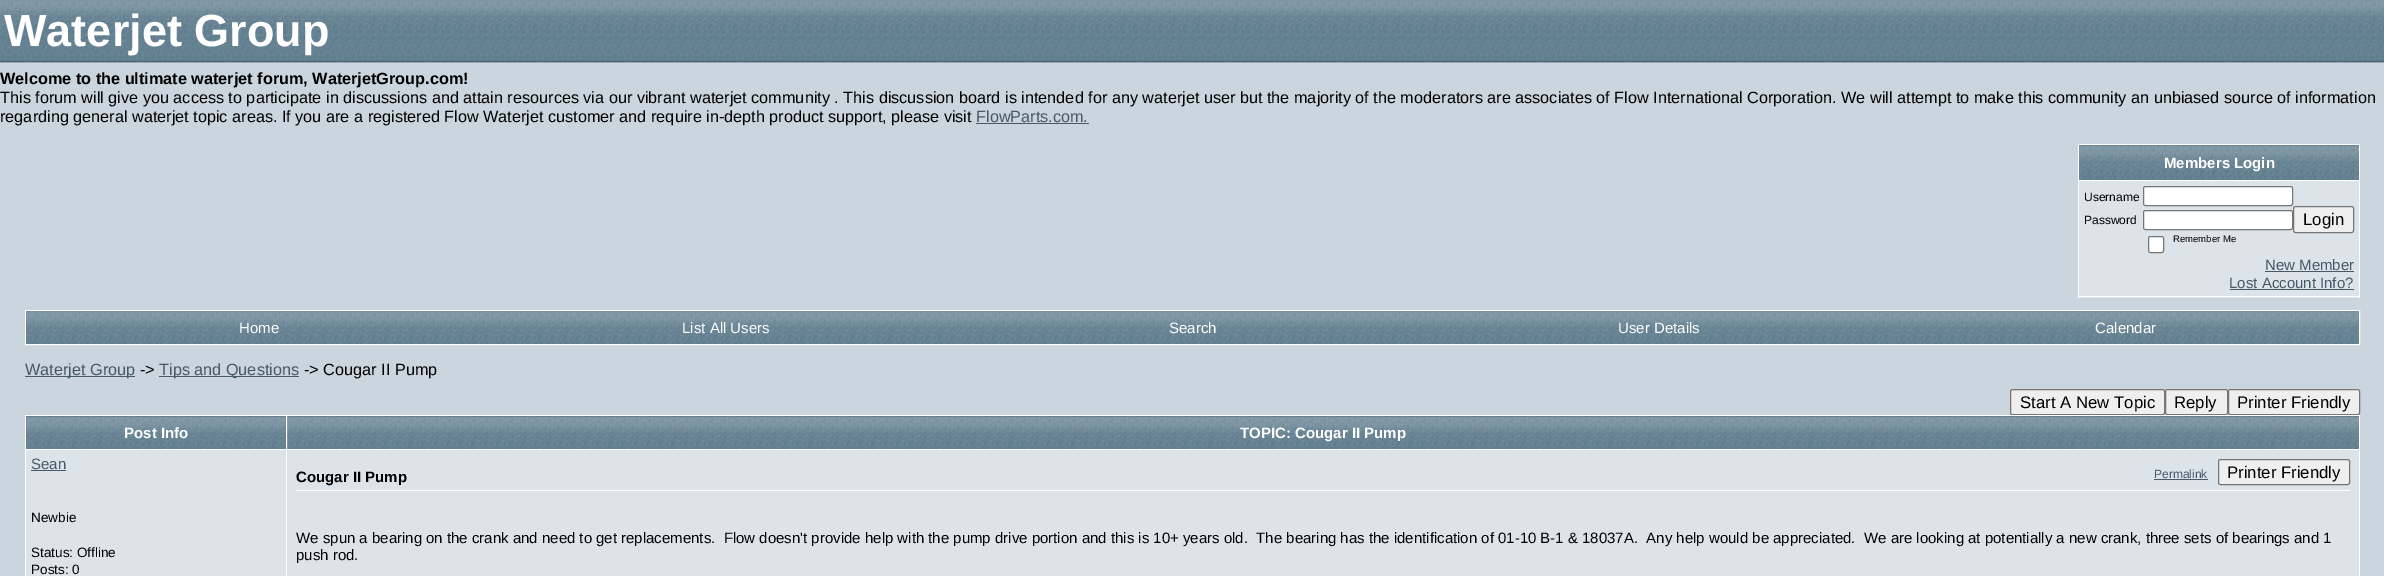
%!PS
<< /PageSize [2384 576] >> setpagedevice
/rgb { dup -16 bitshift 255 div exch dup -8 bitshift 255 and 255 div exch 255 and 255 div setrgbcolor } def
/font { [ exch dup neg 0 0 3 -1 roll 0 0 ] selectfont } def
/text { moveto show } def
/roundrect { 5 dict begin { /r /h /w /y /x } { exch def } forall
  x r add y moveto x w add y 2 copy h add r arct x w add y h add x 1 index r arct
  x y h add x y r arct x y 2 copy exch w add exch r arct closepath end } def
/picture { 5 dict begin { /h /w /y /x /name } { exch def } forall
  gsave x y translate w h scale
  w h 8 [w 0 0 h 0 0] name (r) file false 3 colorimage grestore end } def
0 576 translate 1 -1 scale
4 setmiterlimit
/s1 { /LiberationSans-Bold 45 font 16#FFFFFF rgb } def
/s2 { /LiberationSans-Bold 16.25 font 16#000000 rgb } def
/s3 { /LiberationSans-Regular 16.25 font 16#000000 rgb } def
/s4 { /LiberationSans-Regular 16.25 font 16#465964 rgb } def
/s5 { /LiberationSans-Bold 15 font 16#FFFFFF rgb } def
/s6 { /LiberationSans-Regular 12 font 16#000000 rgb } def
/s7 { /LiberationSans-Regular 16.75 font 16#000000 rgb } def
/s8 { /LiberationSans-Regular 9.5 font 16#000000 rgb } def
/s9 { /LiberationSans-Regular 15 font 16#465964 rgb } def
/s10 { /LiberationSans-Regular 15 font 16#FFFFFF rgb } def
/s11 { /LiberationSans-Regular 13.5 font 16#000000 rgb } def
/s12 { /LiberationSans-Bold 15 font 16#000000 rgb } def
/s13 { /LiberationSans-Regular 12 font 16#465964 rgb } def
/s14 { /LiberationSans-Regular 15 font 16#000000 rgb } def
16#CAD5DD rgb
0 0 2384 576 rectfill
(pic1.raw) 0 0 2384 63 picture
16#525E6E rgb
0 61 2384 1 rectfill
s1
(Waterjet Group) 4 46 text
s2
(Welcome to the ultimate waterjet forum, WaterjetGroup.com!) 0 84 text
s3
(This forum will give you access to participate in discussions and attain resources via our vibrant waterjet community . This discussion board is intended for any waterjet user but the majority of the moderators are associates of Flow International Corporation. We will attempt to make this community an unbiased source of information) 0 103 text
(regarding general waterjet topic areas. If you are a registered Flow Waterjet customer and require in-depth product support, please visit) 0 122 text
s4
(FlowParts.com.) 976 122 text
976 123 113 1 rectfill
16#FFFFFF rgb
2078 144 282 1 rectfill
2359 144 1 154 rectfill
16#DCE3E9 rgb
2079 181 280 117 rectfill
16#FFFFFF rgb
2078 296 282 1 rectfill
2078 144 1 154 rectfill
(pic2.raw) 2079 145 280 35 picture
2078 180 282 1 rectfill
s5
(Members Login) 2164 168 text
s6
(Username) 2084 201 text
16#FFFFFF rgb
2143.5 186.5 149 19 2 roundrect gsave fill grestore
16#767676 rgb
stroke
s6
(Password) 2084 224 text
16#FFFFFF rgb
2143.5 210.5 149 19 2 roundrect gsave fill grestore
16#767676 rgb
stroke
16#EFEFEF rgb
2293.5 206.5 60 26 2 roundrect gsave fill grestore
16#767676 rgb
stroke
s7
(Login) 2303 225 text
16#FFFFFF rgb
2148.5 236.5 15 16 2 roundrect gsave fill grestore
16#767676 rgb
stroke
s8
(Remember Me) 2173 242 text
s9
(New Member) 2265 270 text
2265 271 89 1 rectfill
(Lost Account Info?) 2229 288 text
2230 289 124 1 rectfill
16#FFFFFF rgb
25.5 310.5 2334 34 rectstroke
16#648091 rgb
26 311 933 33 rectfill
(pic3.raw) 26 311 467 33 picture
s10
(Home) 239 333 text
(pic4.raw) 492 311 467 33 picture
(List All Users) 682 333 text
(pic5.raw) 959 311 467 33 picture
(Search) 1169 333 text
16#648091 rgb
1426 311 933 33 rectfill
(pic3.raw) 1426 311 467 33 picture
s10
(User Details) 1618 333 text
(pic4.raw) 1892 311 467 33 picture
(Calendar) 2095 333 text
16#465964 rgb
25 376 110 1 rectfill
s4
(Waterjet Group) 25 375 text
s3
(->) 140 375 text
16#465964 rgb
159 376 140 1 rectfill
(Tips and Questions) 159 375 text
s3
(-> Cougar II Pump) 304 375 text
16#EFEFEF rgb
2010.5 389.5 154 25 2 roundrect gsave fill grestore
16#767676 rgb
stroke
s7
(Start A New Topic) 2020 408 text
16#EFEFEF rgb
2165.5 389.5 62 25 2 roundrect gsave fill grestore
16#767676 rgb
stroke
s7
(Reply) 2174 408 text
16#EFEFEF rgb
2228.5 389.5 131 25 2 roundrect gsave fill grestore
16#767676 rgb
stroke
s7
(Printer Friendly) 2237 408 text
16#FFFFFF rgb
25 415 2335 1 rectfill
2359 415 1 161 rectfill
25 415 1 161 rectfill
16#648091 rgb
26 416 260 33 rectfill
(pic6.raw) 26 416 262 33 picture
16#FFFFFF rgb
286 449 2074 1 rectfill
16#DCE3E9 rgb
26 450 2333 126 rectfill
16#FFFFFF rgb
286 449 1 127 rectfill
25 449 263 1 rectfill
286 415 1 35 rectfill
s5
(Post Info) 124 438 text
(pic7.raw) 287 416 2072 33 picture
(TOPIC: Cougar II Pump) 1240 438 text
s9
(Sean) 31 469 text
31 470 35 1 rectfill
s11
(Newbie) 31 522 text
(Status: Offline) 31 557 text
(Posts: 0) 31 574 text
s12
(Cougar II Pump) 296 482 text
s13
(Permalink) 2154 478 text
2154 479 54 1 rectfill
16#EFEFEF rgb
2218.5 459.5 131 25 2 roundrect gsave fill grestore
16#767676 rgb
stroke
s7
(Printer Friendly) 2227 478 text
16#FFFFFF rgb
296 490 2054 1 rectfill
s14
(We spun a bearing on the crank and need to get replacements.  Flow doesn't provide help with the pump drive portion and this is 10+ years old.  The bearing has the identification of 01-10 B-1 & 18037A.  Any help would be appreciated.  We are looking at potentially a new crank, three sets of bearings and 1) 296 543 text
(push rod.) 296 560 text
showpage
